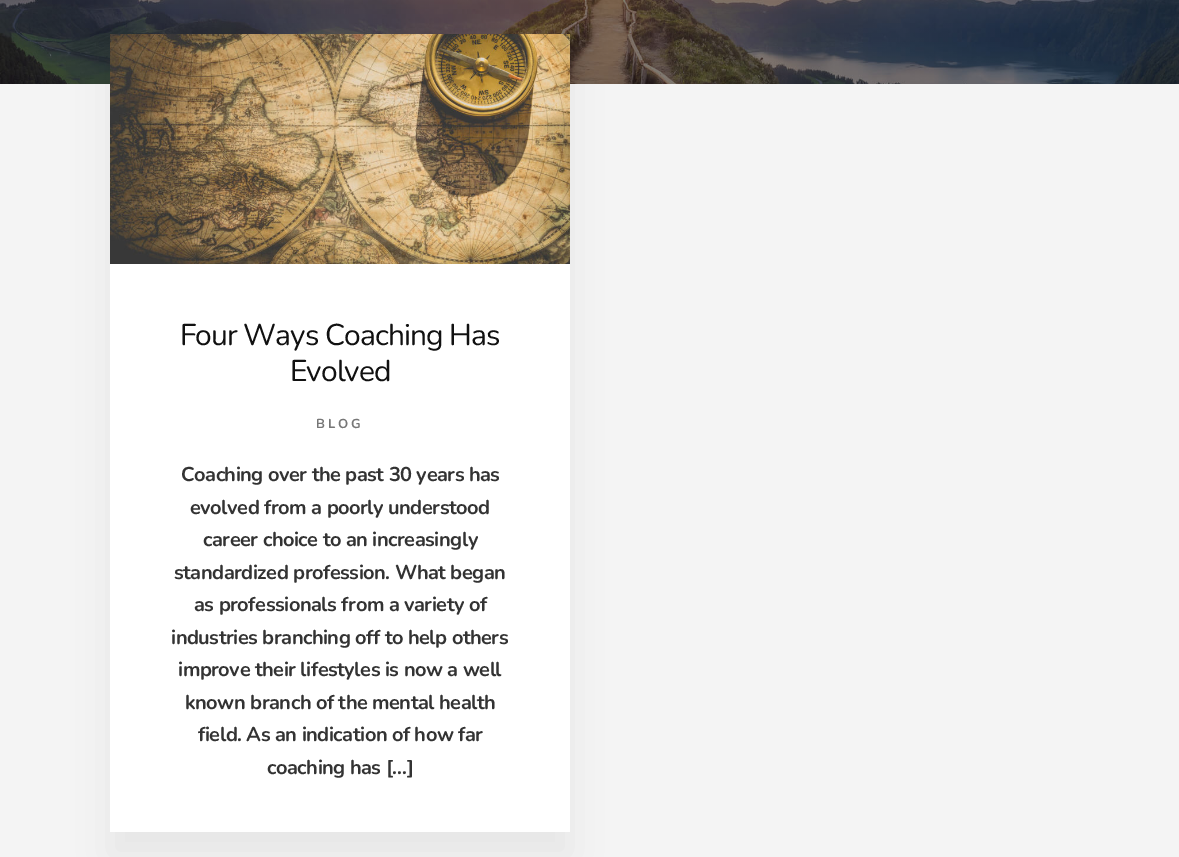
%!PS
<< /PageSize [1179 857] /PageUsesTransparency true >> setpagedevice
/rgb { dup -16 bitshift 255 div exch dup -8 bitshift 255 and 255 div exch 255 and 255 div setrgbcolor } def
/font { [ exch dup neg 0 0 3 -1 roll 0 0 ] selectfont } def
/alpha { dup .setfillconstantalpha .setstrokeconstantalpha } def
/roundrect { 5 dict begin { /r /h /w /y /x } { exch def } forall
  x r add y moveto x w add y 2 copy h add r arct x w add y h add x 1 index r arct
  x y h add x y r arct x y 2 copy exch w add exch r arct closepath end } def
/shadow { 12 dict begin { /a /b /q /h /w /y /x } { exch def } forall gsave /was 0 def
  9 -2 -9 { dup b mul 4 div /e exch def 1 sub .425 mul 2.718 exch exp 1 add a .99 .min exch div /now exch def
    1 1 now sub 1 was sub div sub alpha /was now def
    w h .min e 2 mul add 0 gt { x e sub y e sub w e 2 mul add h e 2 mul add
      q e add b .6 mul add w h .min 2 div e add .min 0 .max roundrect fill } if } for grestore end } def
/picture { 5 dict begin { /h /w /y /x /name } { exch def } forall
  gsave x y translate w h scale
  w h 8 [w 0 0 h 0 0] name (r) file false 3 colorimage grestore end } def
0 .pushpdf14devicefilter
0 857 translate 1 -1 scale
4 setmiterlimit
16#F4F4F4 rgb
0 0 1179 857 rectfill
(pic1.raw) 0 0 1179 84 picture
16#000000 rgb
110 59 460 798 0 20 0.05 shadow
16#FFFFFF rgb
110 264 460 568 rectfill
(pic2.raw) 110 34 460 230 picture
/Nunito-Regular 30 font
16#111111 rgb
180 345 moveto -1 0 (Four Ways Coaching Has) ashow
290 381 moveto -1 0 (Evolved) ashow
/Nunito-Bold 13 font
16#767676 rgb
316 428 moveto 3 0 (BLOG) ashow
/Nunito-Bold 20 font
16#333333 rgb
181 481 moveto -0.5 0 (Coaching over the past 30 years has) ashow
190 514 moveto -0.5 0 (evolved from a poorly understood) ashow
203 546 moveto -0.5 0 (career choice to an increasingly) ashow
174 579 moveto -0.5 0 (standardized profession. What began) ashow
194 611 moveto -0.5 0 (as professionals from a variety of) ashow
171 644 moveto -0.5 0 (industries branching off to help others) ashow
178 676 moveto -0.5 0 (improve their lifestyles is now a well) ashow
185 709 moveto -0.5 0 (known branch of the mental health) ashow
198 741 moveto -0.5 0 (field. As an indication of how far) ashow
267 774 moveto -0.5 0 (coaching has […]) ashow
.poppdf14devicefilter showpage
